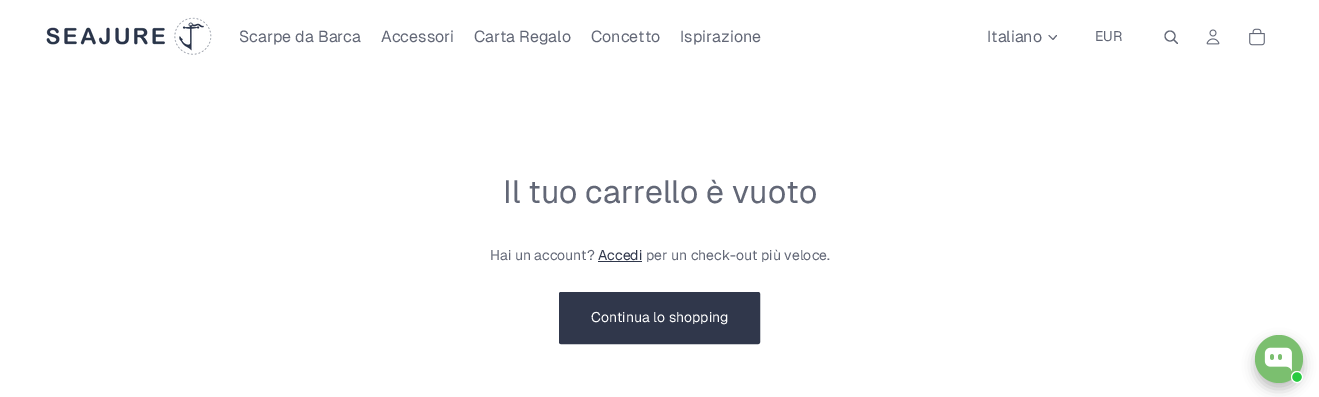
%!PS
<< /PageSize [1319 397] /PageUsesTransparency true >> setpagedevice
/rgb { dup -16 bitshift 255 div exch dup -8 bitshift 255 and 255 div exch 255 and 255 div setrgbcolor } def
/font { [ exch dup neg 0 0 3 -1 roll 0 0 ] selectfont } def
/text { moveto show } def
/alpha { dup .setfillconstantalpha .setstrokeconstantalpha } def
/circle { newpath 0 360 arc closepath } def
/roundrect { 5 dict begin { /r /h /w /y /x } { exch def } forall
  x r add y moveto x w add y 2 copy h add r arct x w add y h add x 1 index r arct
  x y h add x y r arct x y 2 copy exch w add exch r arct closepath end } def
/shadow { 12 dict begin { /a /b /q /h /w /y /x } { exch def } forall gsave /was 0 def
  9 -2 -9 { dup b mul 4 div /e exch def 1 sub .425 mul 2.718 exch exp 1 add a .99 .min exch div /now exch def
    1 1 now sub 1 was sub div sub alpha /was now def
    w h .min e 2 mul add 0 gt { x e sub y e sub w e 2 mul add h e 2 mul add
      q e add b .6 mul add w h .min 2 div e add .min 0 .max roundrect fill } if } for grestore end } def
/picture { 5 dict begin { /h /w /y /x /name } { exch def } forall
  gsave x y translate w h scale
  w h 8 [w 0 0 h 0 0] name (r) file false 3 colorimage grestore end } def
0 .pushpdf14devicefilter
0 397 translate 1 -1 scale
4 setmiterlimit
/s1 { /Geist-Regular 16 font 16#626776 rgb } def
/s2 { /Geist-Regular 14 font 16#626776 rgb } def
/s3 { /Geist-Regular 32 font 16#626776 rgb } def
/s4 { /Geist-Regular 14 font 16#30374B rgb } def
/s5 { /Geist-Regular 14 font 16#FFFFFF rgb } def
16#FFFFFF rgb
0 0 1319 397 rectfill
(pic1.raw) 46 17 166 38 picture
s1
(Scarpe da Barca) 239 42 text
(Accessori) 381 42 text
(Carta Regalo) 474 42 text
(Concetto) 591 42 text
(Ispirazione) 680 42 text
(Italiano) 987 42 text
1 setlinecap
1 setlinejoin
1056.5 35.5 moveto 1053 39.5 lineto 1049 35.5 lineto stroke
s2
(EUR) 1095 41 text
1.1 setlinewidth
0 setlinecap
0 setlinejoin
1170 36 5 circle stroke
1 setlinecap
1 setlinejoin
1174 40 moveto 1177.5 43.5 lineto stroke
(pic2.raw) 1206 29 14 16 picture
(pic3.raw) 1249 28 16 18 picture
s3
(Il tuo carrello è vuoto) 503 203 text
s2
(Hai un account?) 490 260 text
s4
(Accedi) 598 260 text
598 261 44 1 rectfill
s2
(per un check-out più veloce.) 646 260 text
16#30374B rgb
559.5 292.5 200 51 1.5 roundrect gsave fill grestore
1 setlinewidth
0 setlinecap
0 setlinejoin
stroke
s5
(Continua lo shopping) 591 322 text
16#000000 rgb
1255 341 48 48 24 6 0.25 shadow
16#7BBF6F rgb
1279 359 24 circle fill
(pic4.raw) 1264 347 28 24 picture
16#27CA40 rgb
1297 377 5.5 circle gsave fill grestore
16#FFFFFF rgb
stroke
.poppdf14devicefilter showpage
